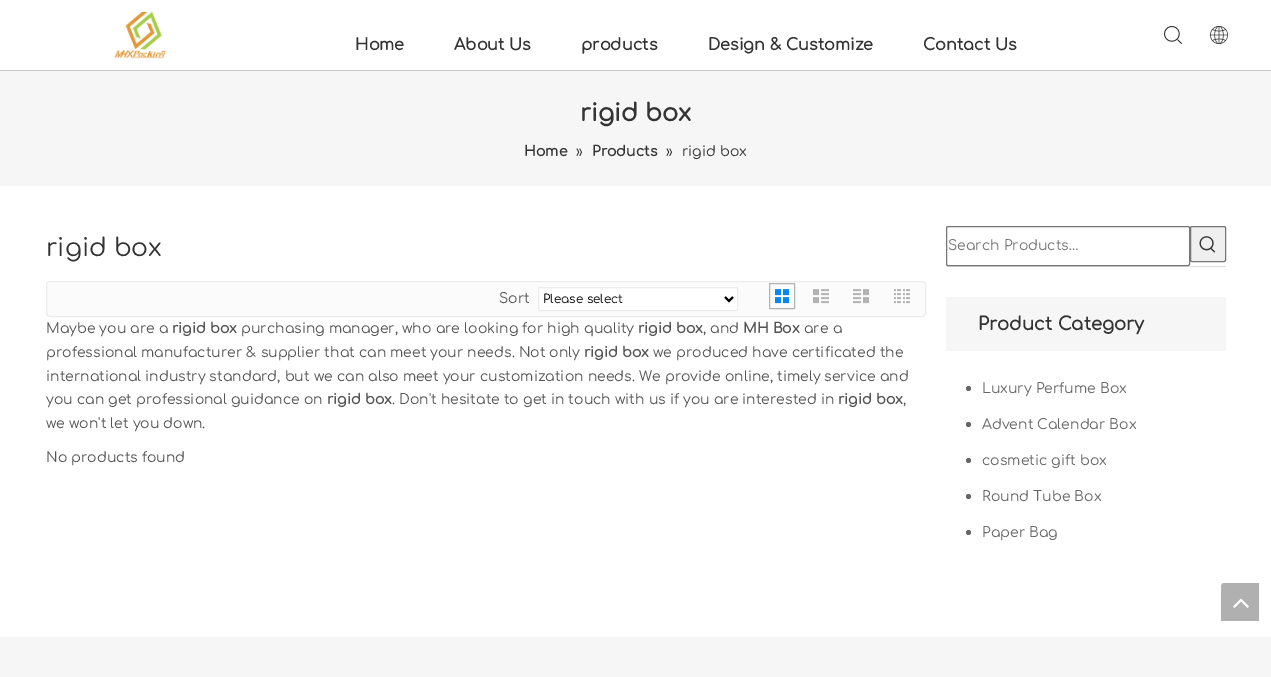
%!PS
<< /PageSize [1271 677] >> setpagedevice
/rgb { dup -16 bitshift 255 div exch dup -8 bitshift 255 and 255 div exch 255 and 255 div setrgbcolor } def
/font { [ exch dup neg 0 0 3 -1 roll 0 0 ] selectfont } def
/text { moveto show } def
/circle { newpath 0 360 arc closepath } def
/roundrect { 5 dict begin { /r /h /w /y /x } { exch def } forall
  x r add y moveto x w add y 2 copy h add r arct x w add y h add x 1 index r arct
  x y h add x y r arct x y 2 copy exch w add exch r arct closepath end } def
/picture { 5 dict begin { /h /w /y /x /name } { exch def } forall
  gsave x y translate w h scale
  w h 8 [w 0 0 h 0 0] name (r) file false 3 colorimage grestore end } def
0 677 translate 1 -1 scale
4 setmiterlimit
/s1 { /Comfortaa-Bold 16 font 16#333333 rgb } def
/s2 { /Comfortaa-Bold 24 font 16#333333 rgb } def
/s3 { /Comfortaa-Bold 14 font 16#333333 rgb } def
/s4 { /Comfortaa-Regular 14 font 16#333333 rgb } def
/s5 { /Comfortaa-Regular 25 font 16#333333 rgb } def
/s6 { /Comfortaa-Regular 14 font 16#545454 rgb } def
/s7 { /Comfortaa-Regular 12 font 16#000000 rgb } def
/s8 { /Comfortaa-Bold 14 font 16#545454 rgb } def
/s9 { /Comfortaa-Regular 14 font 16#757575 rgb } def
/s10 { /Comfortaa-Bold 18 font 16#333333 rgb } def
/s11 { /Comfortaa-Regular 14 font 16#666666 rgb } def
16#FFFFFF rgb
0 0 1271 677 rectfill
16#C9C9C9 rgb
0 70 1271 1 rectfill
(pic1.raw) 114 11 52 48 picture
s1
(Home) 355 50 text
(About Us) 454 50 text
(products) 581 50 text
(Design & Customize) 708 50 text
(Contact Us) 923 50 text
(pic2.raw) 1164 26 18 18 picture
(pic3.raw) 1210 26 18 18 picture
16#F6F6F6 rgb
0 71 1271 115 rectfill
s2
(rigid box) 580 121 text
s3
(Home) 524 156 text
s4
(») 576 156 text
s3
(Products) 592 156 text
s4
(») 666 156 text
(rigid box) 682 156 text
s5
(rigid box) 46 256 text
16#FBFBFB rgb
46.5 281.5 879 35 3.5 roundrect gsave fill grestore
16#ECECEC rgb
stroke
s6
(Sort) 499 303 text
16#FFFFFF rgb
538.5 287.5 199 23 1.5 roundrect gsave fill grestore
16#ECECEC rgb
stroke
16#000000 rgb
2 setlinewidth
725 297 moveto 729 301 lineto 733 297 lineto stroke
s7
(Please select) 543 303 text
16#B3B3B3 rgb
1 setlinewidth
769.5 283.5 25 25 0.5 roundrect stroke
(pic4.raw) 775 289 14 15 picture
(pic5.raw) 813 289 16 15 picture
(pic6.raw) 853 289 16 15 picture
(pic7.raw) 894 289 16 15 picture
s6
(Maybe you are a) 46 333 text
s8
(rigid box) 172 333 text
s6
(purchasing manager, who are looking for high quality) 241 333 text
s8
(rigid box) 638 333 text
s6
(, and) 703 333 text
s8
(MH Box) 743 333 text
s6
(are a) 804 333 text
(professional manufacturer & supplier that can meet your needs. Not only) 46 357 text
s8
(rigid box) 584 357 text
s6
(we produced have certificated the) 653 357 text
(international industry standard, but we can also meet your customization needs. We provide online, timely service and) 46 381 text
(you can get professional guidance on) 46 404 text
s8
(rigid box) 327 404 text
s6
(. Don't hesitate to get in touch with us if you are interested in) 392 404 text
s8
(rigid box) 838 404 text
s6
(,) 903 404 text
(we won't let you down.) 46 428 text
(No products found) 46 462 text
16#DDDDDD rgb
946 266 280 1 rectfill
16#767676 rgb
946.5 226.5 243 39 1.5 roundrect stroke
s9
(Search Products…) 948 250 text
16#EFEFEF rgb
1190.5 226.5 35 35 1.5 roundrect gsave fill grestore
16#767676 rgb
stroke
(pic8.raw) 1199 236 17 17 picture
16#F6F6F6 rgb
946 297 280 54 rectfill
s10
(Product Category) 978 330 text
16#666666 rgb
968.5 388.5 2.5 circle fill
s11
(Luxury Perfume Box) 982 393 text
968.5 424.5 2.5 circle fill
(Advent Calendar Box) 982 429 text
968.5 460.5 2.5 circle fill
(cosmetic gift box) 982 465 text
968.5 496.5 2.5 circle fill
(Round Tube Box) 982 501 text
968.5 532.5 2.5 circle fill
(Paper Bag) 982 537 text
(pic9.raw) 1221 583 38 38 picture
16#F6F6F6 rgb
0 637 1271 40 rectfill
showpage
